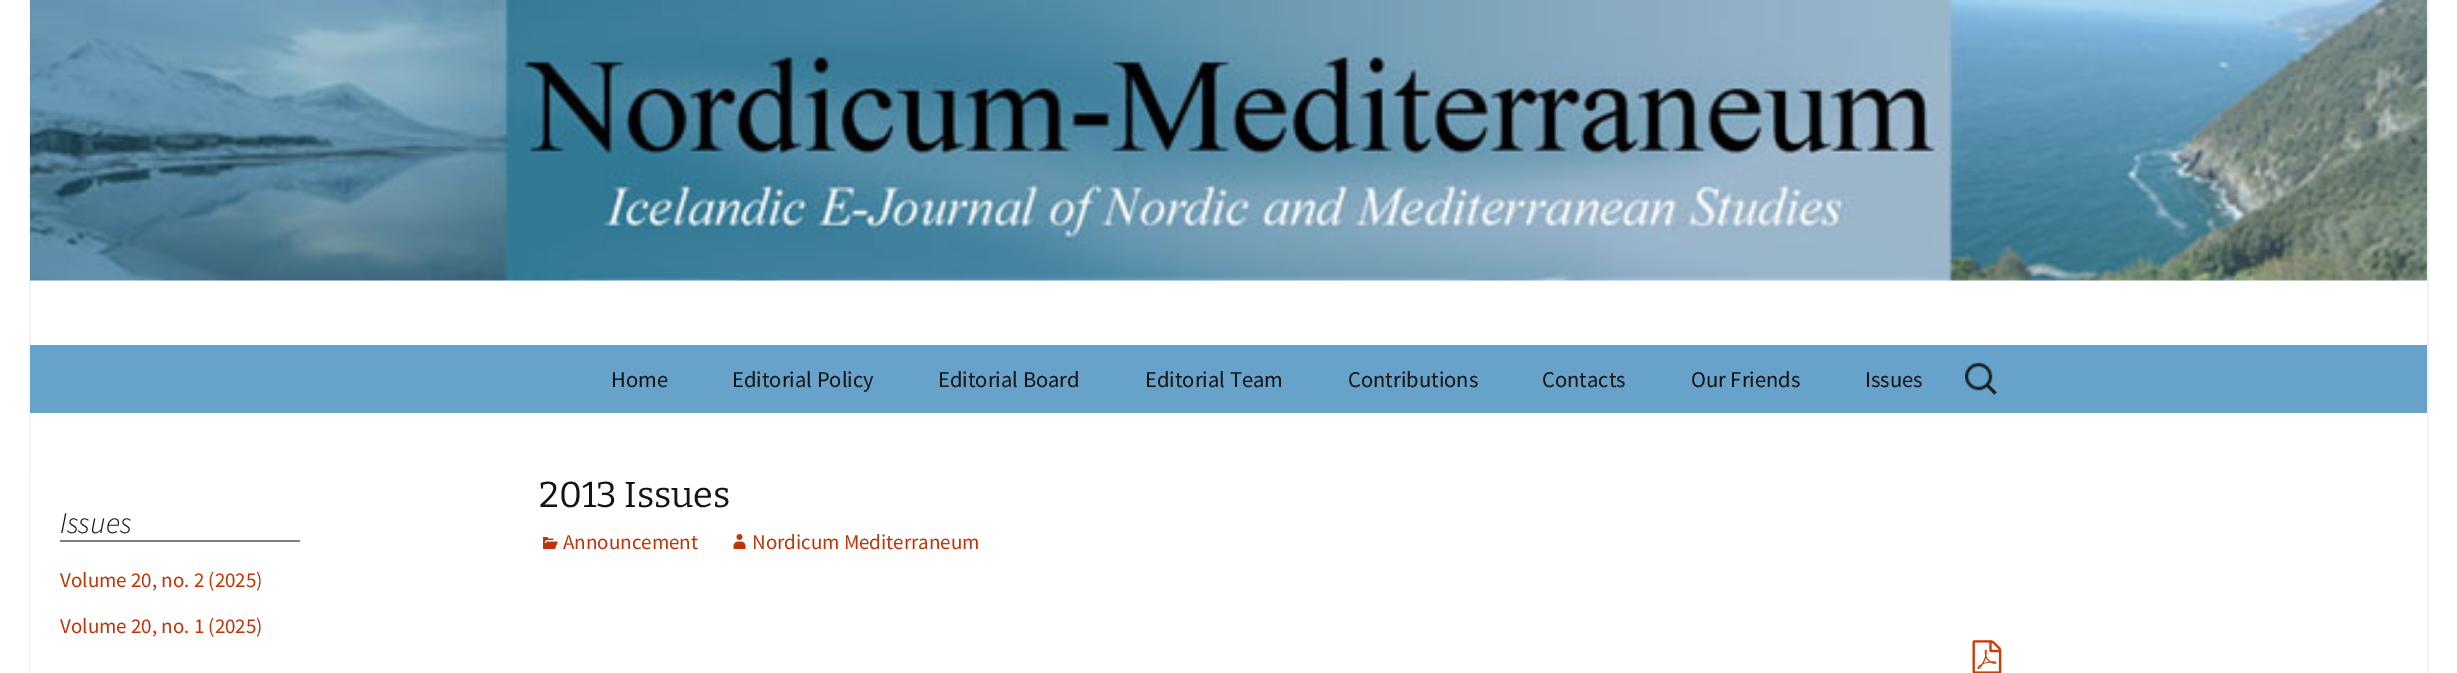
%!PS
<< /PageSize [2457 673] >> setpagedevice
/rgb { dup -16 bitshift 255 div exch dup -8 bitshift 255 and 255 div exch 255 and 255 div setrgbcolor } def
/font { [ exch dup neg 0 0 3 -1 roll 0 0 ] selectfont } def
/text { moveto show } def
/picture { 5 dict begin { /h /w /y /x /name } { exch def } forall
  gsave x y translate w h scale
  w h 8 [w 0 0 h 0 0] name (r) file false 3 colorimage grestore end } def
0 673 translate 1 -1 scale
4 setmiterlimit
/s1 { /SourceSansPro-Regular 22.5 font 16#141412 rgb } def
/s2 { /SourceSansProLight-LightItalic 30 font 16#141412 rgb } def
/s3 { /SourceSansPro-Regular 21 font 16#BC360A rgb } def
/s4 { /Bitter-Thin 36 font 16#141412 rgb } def
16#FFFFFF rgb
0 0 2457 673 rectfill
16#F2F2F2 rgb
2427 0 2 673 rectfill
29 0 2 673 rectfill
(pic1.raw) 30 0 2397 281 picture
16#66A2C9 rgb
30 345 2397 68 rectfill
s1
(Home) 611 387 text
(Editorial Policy) 732 387 text
(Editorial Board) 938 387 text
(Editorial Team) 1145 387 text
(Contributions) 1348 387 text
(Contacts) 1542 387 text
(Our Friends) 1691 387 text
(Issues) 1865 387 text
(pic2.raw) 1965 362 32 33 picture
16#FFFFFF rgb
30 473 1 200 rectfill
16#808080 rgb
60 540 240 2 rectfill
s2
(Issues) 60 533 text
s3
(Volume 20, no. 2 \(2025\)) 60 587 text
(Volume 20, no. 1 \(2025\)) 60 633 text
s4
(2013 Issues) 539 507 text
(pic3.raw) 543 537 15 12 picture
s3
(Announcement) 563 549 text
(pic4.raw) 733 534 13 15 picture
(Nordicum Mediterraneum) 752 549 text
(pic5.raw) 1972 640 30 33 picture
showpage
